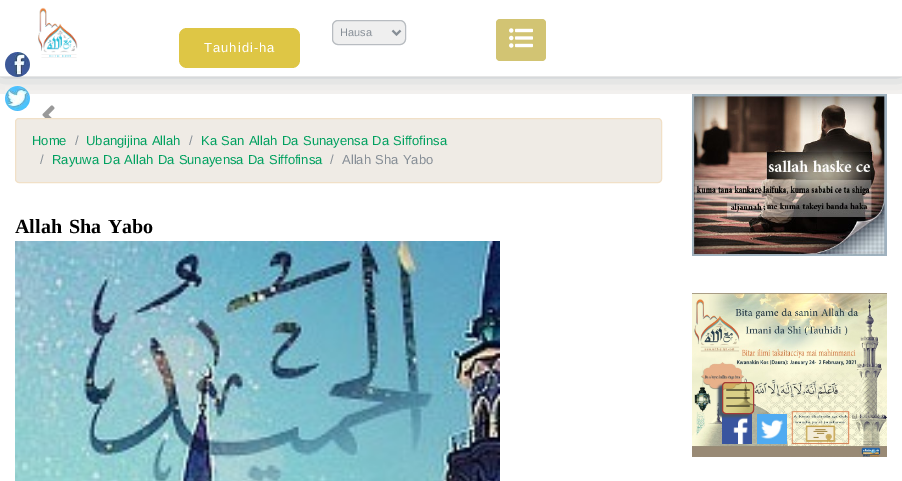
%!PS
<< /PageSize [902 481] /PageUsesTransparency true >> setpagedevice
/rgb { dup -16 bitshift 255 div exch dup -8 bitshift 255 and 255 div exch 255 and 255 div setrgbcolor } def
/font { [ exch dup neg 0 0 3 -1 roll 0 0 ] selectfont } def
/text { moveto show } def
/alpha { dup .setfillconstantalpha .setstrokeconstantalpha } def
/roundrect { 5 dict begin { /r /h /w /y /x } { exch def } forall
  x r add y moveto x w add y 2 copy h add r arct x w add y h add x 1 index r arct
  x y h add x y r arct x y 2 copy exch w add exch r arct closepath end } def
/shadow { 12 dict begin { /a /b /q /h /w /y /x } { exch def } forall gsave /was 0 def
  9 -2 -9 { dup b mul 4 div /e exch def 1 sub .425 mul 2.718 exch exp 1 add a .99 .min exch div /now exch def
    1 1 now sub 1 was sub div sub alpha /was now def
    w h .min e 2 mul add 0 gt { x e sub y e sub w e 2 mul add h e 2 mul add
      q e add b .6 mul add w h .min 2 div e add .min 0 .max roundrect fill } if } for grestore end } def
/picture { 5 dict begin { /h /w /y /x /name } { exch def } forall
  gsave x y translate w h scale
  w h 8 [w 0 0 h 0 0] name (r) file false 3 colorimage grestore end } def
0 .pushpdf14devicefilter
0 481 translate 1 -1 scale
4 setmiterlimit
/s1 { /LiberationSans-Regular 11 font 16#868E96 rgb } def
/s2 { /LiberationSans-Regular 13 font 16#00A05F rgb } def
/s3 { /LiberationSans-Regular 13 font 16#868E96 rgb } def
16#F5F3F0 rgb
0 0 902 481 rectfill
16#8A9AAB rgb
0 -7 902 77 0 11.5 1 shadow
16#FFFFFF rgb
0 0 902 76 rectfill
(pic1.raw) 38 7 40 51 picture
16#EFEFEF rgb
332 20 74 25 6 roundrect fill
0.52 alpha
16#868E96 rgb
332.5 20.5 73 24 5.5 roundrect stroke
1 alpha
2 setlinewidth
392.5 30.5 moveto 396.5 34.5 lineto 400.5 30.5 lineto stroke
s1
(Hausa) 340 36 text
16#D2C473 rgb
496 19 50 42 4 roundrect fill
(pic2.raw) 509 28 24 20 picture
16#DEC645 rgb
179 28 121 40 8 roundrect fill
/LiberationSans-Regular 13 font
16#FFFFFF rgb
204 52 moveto 1 0 (Tauhidi-ha) ashow
16#E6E6E6 rgb
0 76 902 1 rectfill
(pic3.raw) 5 52 25 25 picture
16#FFFFFF rgb
0 94 902 387 rectfill
(pic4.raw) 5 86 25 25 picture
(pic5.raw) 42 105 13 13 picture
16#EFEBE5 rgb
15.5 118.5 646 64 3.5 roundrect gsave fill grestore
16#F1E0C7 rgb
1 setlinewidth
stroke
s2
(Home) 32 145 text
s3
(/) 75 145 text
16#00A05F rgb
86 145 moveto 0.75 0 32 (Ubangijina Allah) widthshow
s3
(/) 189 145 text
16#00A05F rgb
201 145 moveto 0.75 0 32 (Ka San Allah Da Sunayensa Da Siffofinsa) widthshow
s3
(/) 40 164 text
16#00A05F rgb
52 164 moveto 0.75 0 32 (Rayuwa Da Allah Da Sunayensa Da Siffofinsa) widthshow
s3
(/) 330 164 text
342 164 moveto 0.75 0 32 (Allah Sha Yabo) widthshow
/LiberationSerif-Bold 20 font
16#000000 rgb
15 233 moveto 2 0 32 (Allah Sha Yabo) widthshow
(pic6.raw) 15 241 485 240 picture
(pic11.raw) 692 293 195 164 picture
(pic8.raw) 722 414 30 30 picture
gsave
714 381 moveto 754 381 lineto 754 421 lineto 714 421 lineto closepath 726 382 moveto 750 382 lineto 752 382 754 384 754 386 curveto 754 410 lineto 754 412 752 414 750 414 curveto 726 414 lineto 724 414 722 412 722 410 curveto 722 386 lineto 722 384 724 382 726 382 curveto closepath eoclip newpath
16#445566 rgb
718 385 32 32 4 1 1 shadow
grestore
0.48 alpha
16#BEA934 rgb
722 382 32 32 4 roundrect fill
0.96 alpha
16#A23434 rgb
722.5 382.5 31 31 3.5 roundrect stroke
1 alpha
(pic7.raw) 726 389 24 18 picture
(pic9.raw) 757 414 30 30 picture
(pic10.raw) 692 94 195 162 picture
.poppdf14devicefilter showpage
